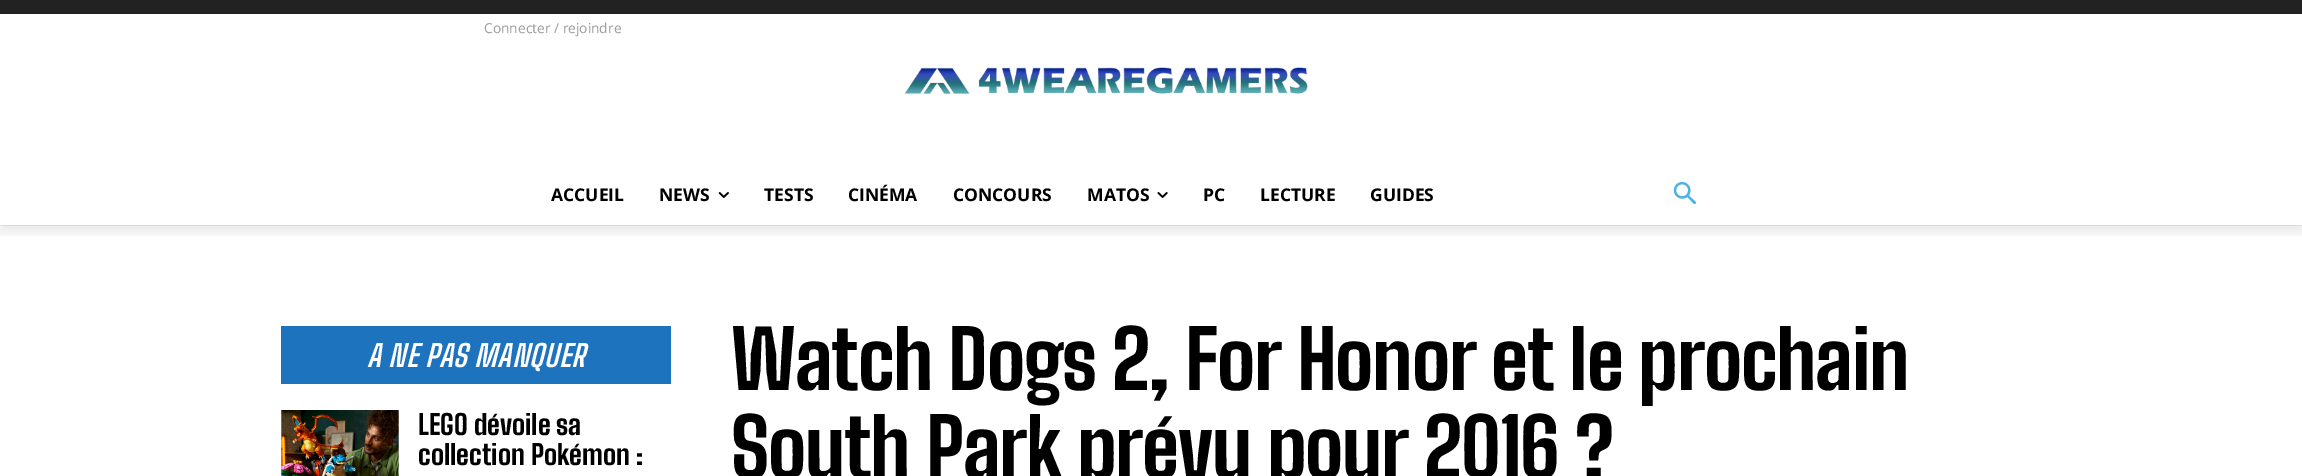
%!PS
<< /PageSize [2302 476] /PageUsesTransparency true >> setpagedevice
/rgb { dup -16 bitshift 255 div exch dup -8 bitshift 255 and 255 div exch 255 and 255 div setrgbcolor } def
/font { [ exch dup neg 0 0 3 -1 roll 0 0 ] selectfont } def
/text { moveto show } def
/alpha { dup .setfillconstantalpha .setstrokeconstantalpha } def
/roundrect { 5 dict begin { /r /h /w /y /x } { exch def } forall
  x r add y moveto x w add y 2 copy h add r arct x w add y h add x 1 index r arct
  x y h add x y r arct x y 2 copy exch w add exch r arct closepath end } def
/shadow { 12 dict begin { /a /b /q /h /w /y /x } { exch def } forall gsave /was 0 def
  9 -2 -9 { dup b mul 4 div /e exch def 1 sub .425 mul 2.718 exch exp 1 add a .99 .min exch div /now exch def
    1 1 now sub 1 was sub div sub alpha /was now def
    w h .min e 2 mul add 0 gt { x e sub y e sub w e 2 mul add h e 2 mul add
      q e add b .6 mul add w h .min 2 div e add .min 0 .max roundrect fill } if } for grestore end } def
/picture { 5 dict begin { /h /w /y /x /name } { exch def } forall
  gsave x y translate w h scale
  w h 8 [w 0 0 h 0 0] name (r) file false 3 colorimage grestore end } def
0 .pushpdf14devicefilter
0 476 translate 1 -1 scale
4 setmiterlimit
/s1 { /OpenSans-Regular 13.75 font 16#999999 rgb } def
/s2 { /OpenSans-Bold 17.5 font 16#000000 rgb } def
/s3 { /BigShouldersText-ExtraBold 27.5 font 16#000000 rgb } def
16#FFFFFF rgb
0 0 2302 476 rectfill
16#222222 rgb
0 0 2302 14 rectfill
(pic1.raw) 904 67 404 28 picture
16#EDEDED rgb
0 225 2302 1 rectfill
gsave
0 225 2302 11 rectclip
16#000000 rgb
0 8 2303 225 0 5 0.08 shadow
grestore
s1
(Connecter / rejoindre) 484 33 text
s2
(ACCUEIL) 551 201 text
(NEWS) 659 201 text
(pic2.raw) 718 192 11 6 picture
(TESTS) 764 201 text
(CINÉMA) 848 201 text
(CONCOURS) 953 201 text
(MATOS) 1087 201 text
(pic3.raw) 1157 192 11 6 picture
(PC) 1203 201 text
(LECTURE) 1260 201 text
(GUIDES) 1370 201 text
(pic4.raw) 1673 181 23 24 picture
16#1E73BE rgb
281 326 390 58 rectfill
/BigShouldersText-BoldItalic 30 font
16#FFFFFF rgb
367 367 moveto 0.6 0 (A NE PAS MANQUER) ashow
(pic5.raw) 281 410 118 66 picture
s3
(LEGO dévoile sa) 418 435 text
(collection Pokémon :) 418 465 text
/BigShouldersText-ExtraBold 80 font
731 390 moveto -1.25 0 (Watch Dogs 2, For Honor et le prochain) ashow
731 478 moveto -1.25 0 (South Park prévu pour 2016 ?) ashow
.poppdf14devicefilter showpage
